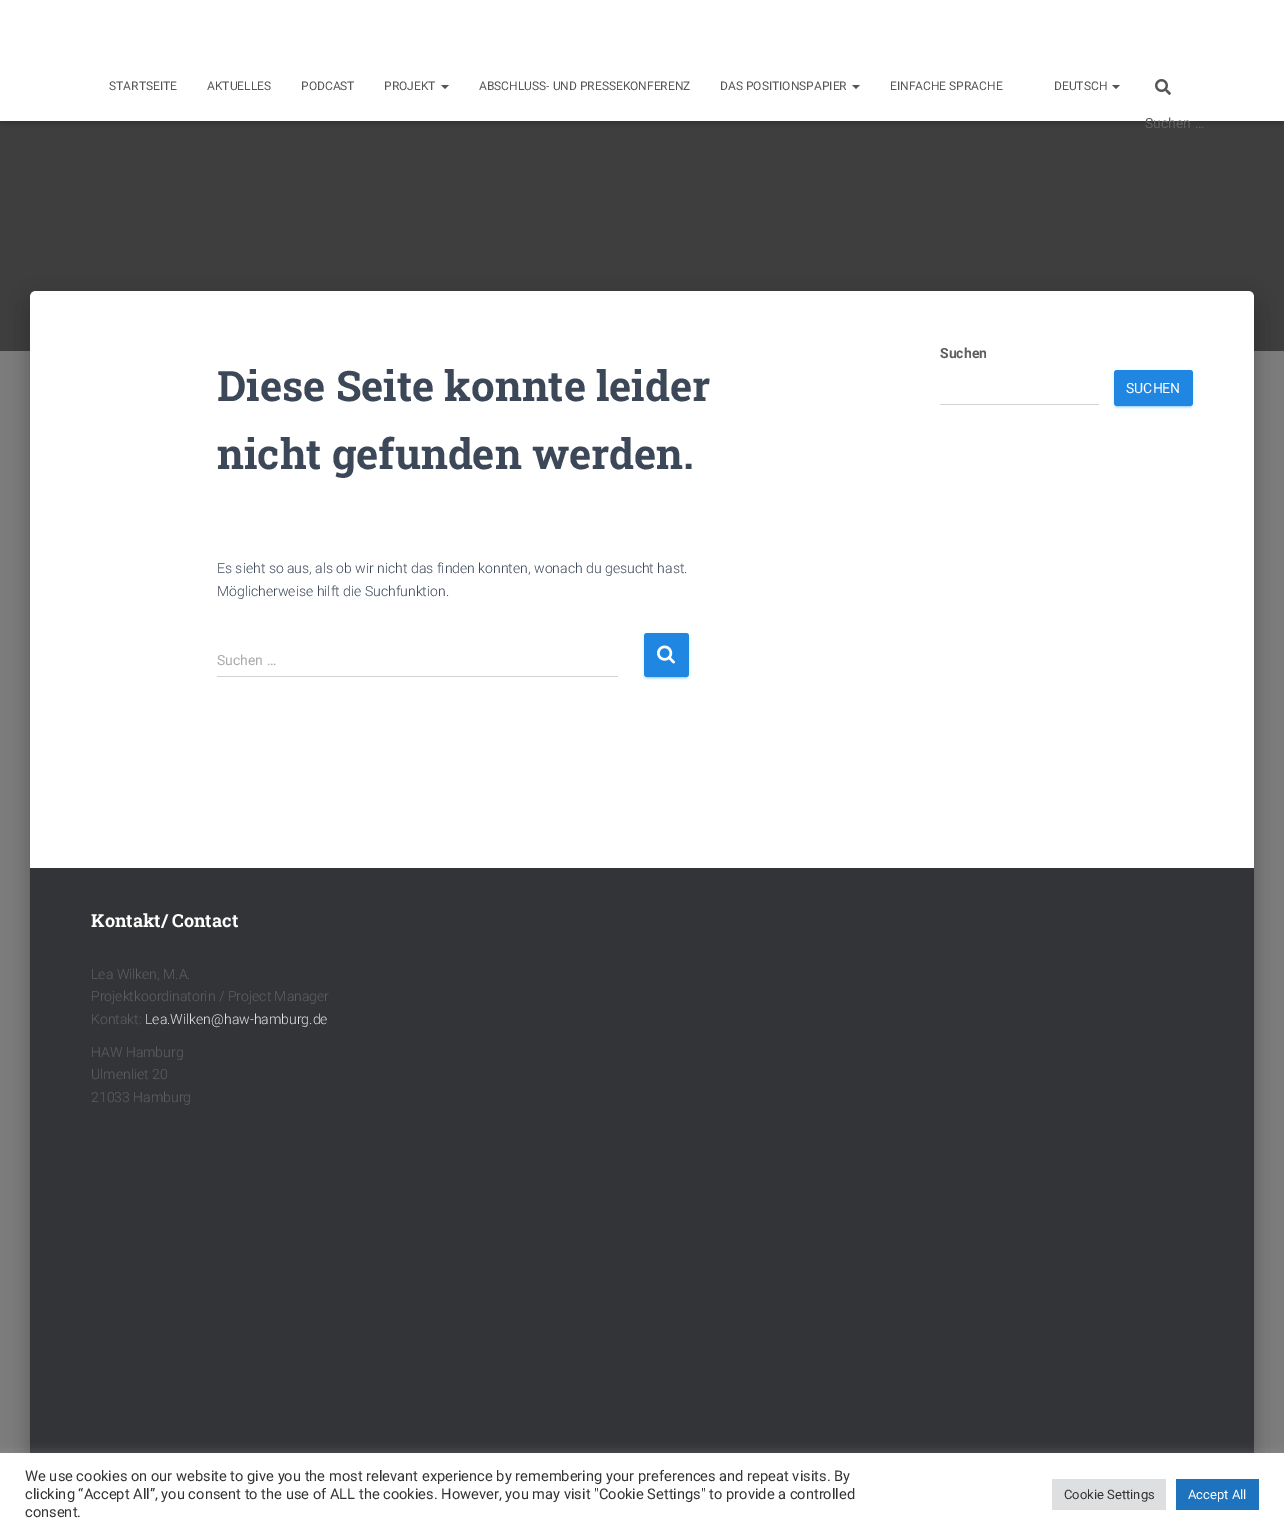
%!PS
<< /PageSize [1284 1535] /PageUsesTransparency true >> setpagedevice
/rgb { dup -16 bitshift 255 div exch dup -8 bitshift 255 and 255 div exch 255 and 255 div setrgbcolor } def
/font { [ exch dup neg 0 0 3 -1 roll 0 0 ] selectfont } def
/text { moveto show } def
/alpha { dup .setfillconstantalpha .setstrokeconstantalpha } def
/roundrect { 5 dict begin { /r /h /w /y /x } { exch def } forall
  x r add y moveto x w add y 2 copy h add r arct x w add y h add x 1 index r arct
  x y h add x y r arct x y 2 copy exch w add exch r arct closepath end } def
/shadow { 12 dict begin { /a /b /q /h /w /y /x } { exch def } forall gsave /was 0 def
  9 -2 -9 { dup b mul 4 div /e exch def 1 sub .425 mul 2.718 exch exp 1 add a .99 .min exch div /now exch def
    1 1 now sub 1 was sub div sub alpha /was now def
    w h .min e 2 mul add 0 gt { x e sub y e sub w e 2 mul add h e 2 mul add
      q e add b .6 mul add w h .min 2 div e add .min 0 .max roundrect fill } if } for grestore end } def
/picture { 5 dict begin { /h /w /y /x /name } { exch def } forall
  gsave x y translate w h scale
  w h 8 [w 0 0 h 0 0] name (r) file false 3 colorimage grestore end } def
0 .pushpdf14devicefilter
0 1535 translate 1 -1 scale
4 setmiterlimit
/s1 { /Roboto-Regular 12 font 16#555555 rgb } def
/s2 { /Roboto-Regular 14 font 16#5E5E5E rgb } def
/s3 { /RobotoSlab-Bold 42 font 16#3C4858 rgb } def
/s4 { /Roboto-Light 14 font 16#3C4858 rgb } def
/s5 { /Roboto-Regular 14 font 16#AAAAAA rgb } def
/s6 { /Roboto-Bold 14 font 16#5E5E5E rgb } def
/s7 { /Roboto-Regular 14 font 16#FFFFFF rgb } def
/s8 { /RobotoSlab-Bold 18 font 16#FFFFFF rgb } def
/s9 { /Roboto-Light 14 font 16#5E5E5E rgb } def
/s10 { /Roboto-Light 14 font 16#E2E3E3 rgb } def
/s11 { /Roboto-Regular 14.67 font 16#333333 rgb } def
/s12 { /Roboto-Regular 13 font 16#333333 rgb } def
/s13 { /Roboto-Regular 13 font 16#FFFFFF rgb } def
16#7C7C7C rgb
0 0 1284 1535 rectfill
16#3E3E3E rgb
0 121 1284 230 rectfill
16#000000 rgb
2 6 1280 117 0 2.5 0.1 shadow
0 1 1284 121 0 5 0.12 shadow
6 7 1272 109 0 5 0.42 shadow
16#FFFFFF rgb
0 0 1284 121 rectfill
s1
(STARTSEITE) 109 90 text
(AKTUELLES) 207 90 text
(PODCAST) 301 90 text
(PROJEKT) 384 90 text
441 85 moveto 449 85 lineto 445 89 lineto closepath fill
(ABSCHLUSS- UND PRESSEKONFERENZ) 479 90 text
(DAS POSITIONSPAPIER) 720 90 text
852 85 moveto 860 85 lineto 856 89 lineto closepath fill
(EINFACHE SPRACHE) 890 90 text
(DEUTSCH) 1054 90 text
1112 85 moveto 1120 85 lineto 1116 89 lineto closepath fill
(pic1.raw) 1155 79 16 16 picture
s2
(Suchen …) 1145 128 text
16#000000 rgb
35 304 1214 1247 1 5 0.2 shadow
25 292 1234 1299 11 15 0.12 shadow
28 305 1228 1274 8 12 0.14 shadow
16#FFFFFF rgb
36 291 moveto 1248 291 lineto 1251.5 291 1254 293.5 1254 297 curveto 1254 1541 lineto 30 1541 lineto 30 297 lineto 30 293.5 32.5 291 36 291 curveto closepath fill
s3
(Diese Seite konnte leider) 217 401 text
(nicht gefunden werden.) 217 469 text
s4
(Es sieht so aus, als ob wir nicht das finden konnten, wonach du gesucht hast.) 217 573 text
(Möglicherweise hilft die Suchfunktion.) 217 596 text
s5
(Suchen …) 217 665 text
16#D2D2D2 rgb
217 676 401 1 rectfill
16#1F87E2 rgb
644 634 45 44 3 2.5 0.12 shadow
646 638 41 40 1 0.5 0.2 shadow
644 635 45 44 3 1 0.14 shadow
644 633 45 44 3 roundrect fill
(pic2.raw) 657 645 18 19 picture
s6
(Suchen) 940 358 text
16#1F87E2 rgb
1114 371 79 36 3 2.5 0.12 shadow
1116 375 75 32 1 0.5 0.2 shadow
1114 372 79 36 3 1 0.14 shadow
1114 370 79 36 3 roundrect fill
s7
(SUCHEN) 1126 393 text
16#D2D2D2 rgb
940 404 159 1 rectfill
16#323437 rgb
30 868 1224 585 rectfill
s8
(Kontakt/ Contact) 91 927 text
s9
(Lea Wilken, M.A.) 91 979 text
(Projektkoordinatorin / Project Manager) 91 1001 text
(Kontakt:) 91 1024 text
s10
(Lea.Wilken@haw-hamburg.de) 145 1024 text
s9
(HAW Hamburg) 91 1057 text
(Ulmenliet 20) 91 1079 text
(21033 Hamburg) 91 1102 text
16#ACABAB rgb
0 1452 1284 82 0 5 0.3 shadow
16#FFFFFF rgb
0 1453 1284 82 rectfill
s11
(We use cookies on our website to give you the most relevant experience by remembering your preferences and repeat visits. By) 25 1481 text
(clicking “Accept All”, you consent to the use of ALL the cookies. However, you may visit "Cookie Settings" to provide a controlled) 25 1499 text
(consent.) 25 1517 text
16#DEDFE0 rgb
1052 1479 114 31 rectfill
s12
(Cookie Settings) 1064 1499 text
16#1E73BE rgb
1176 1479 83 31 rectfill
s13
(Accept All) 1188 1499 text
.poppdf14devicefilter showpage
